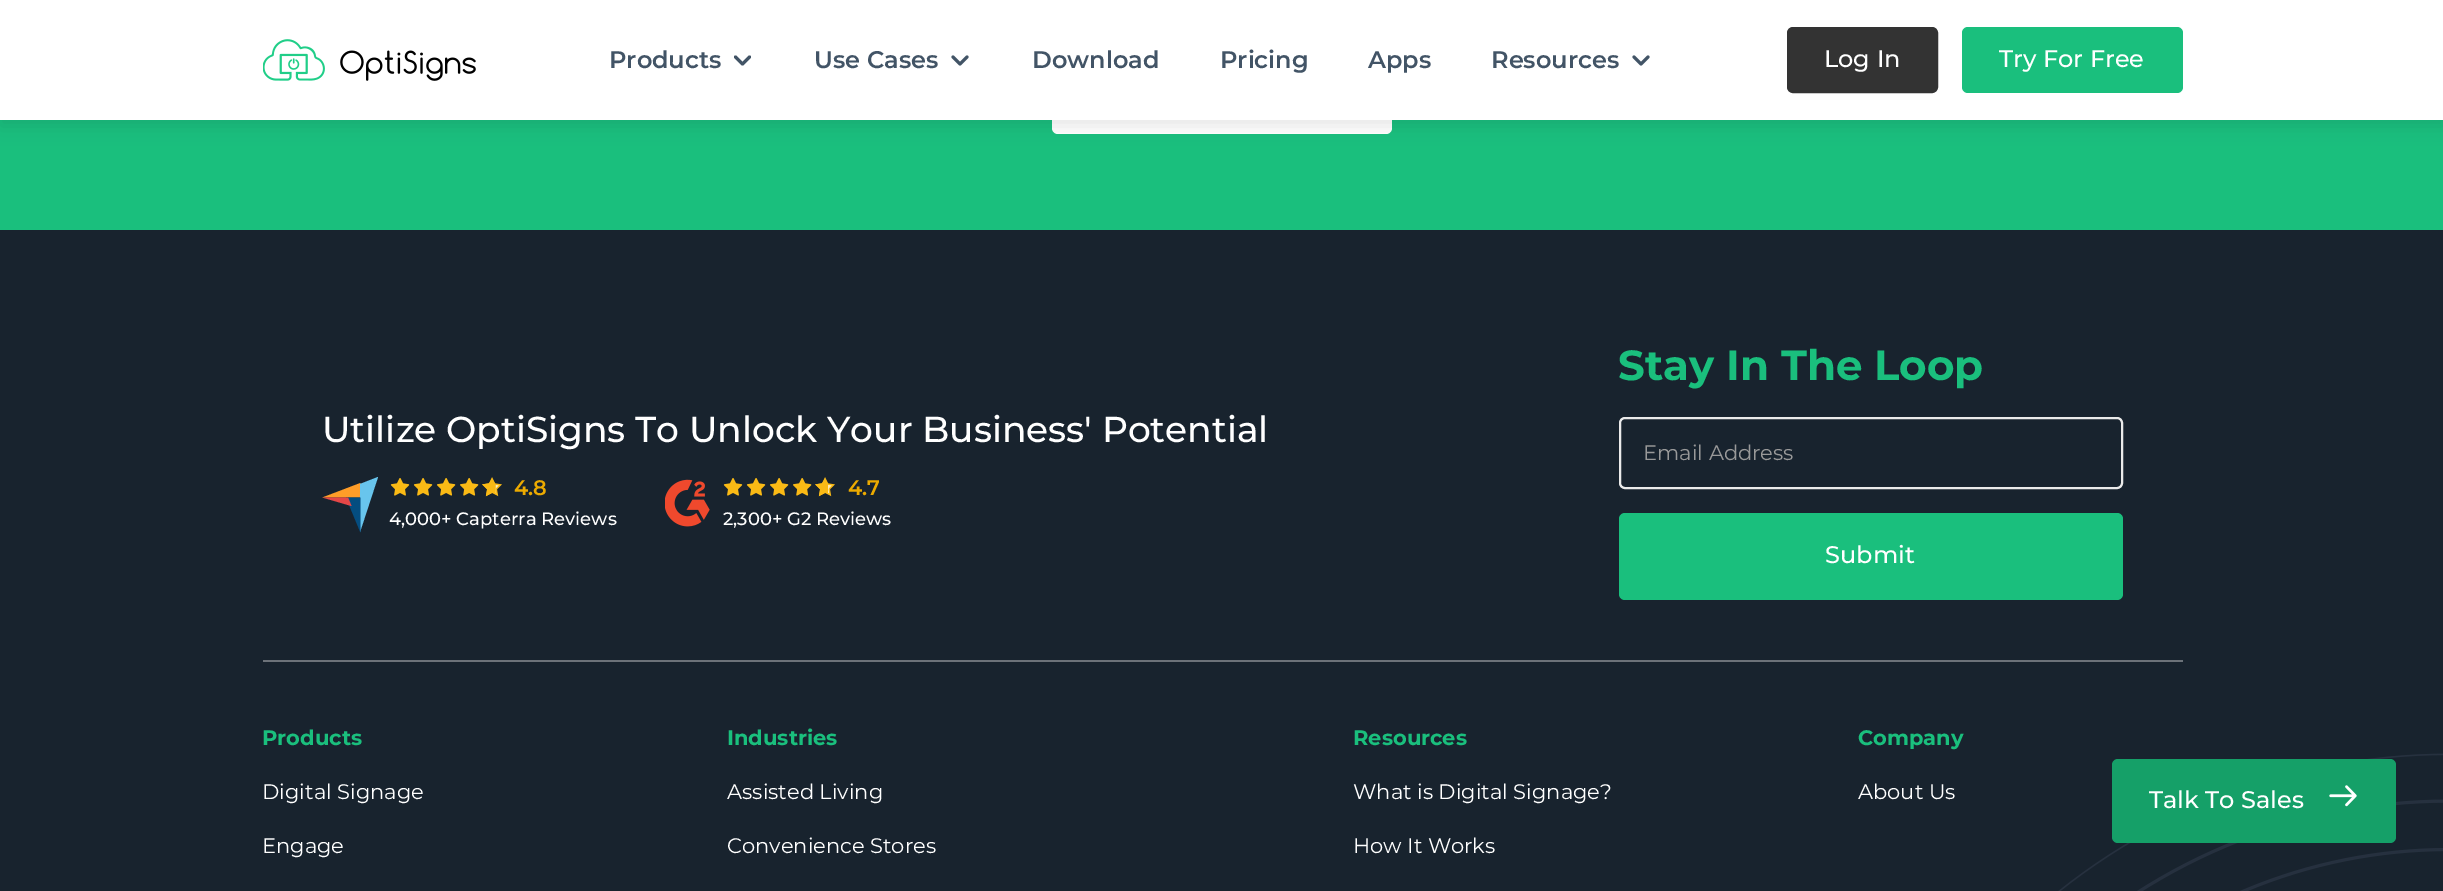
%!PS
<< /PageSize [2443 891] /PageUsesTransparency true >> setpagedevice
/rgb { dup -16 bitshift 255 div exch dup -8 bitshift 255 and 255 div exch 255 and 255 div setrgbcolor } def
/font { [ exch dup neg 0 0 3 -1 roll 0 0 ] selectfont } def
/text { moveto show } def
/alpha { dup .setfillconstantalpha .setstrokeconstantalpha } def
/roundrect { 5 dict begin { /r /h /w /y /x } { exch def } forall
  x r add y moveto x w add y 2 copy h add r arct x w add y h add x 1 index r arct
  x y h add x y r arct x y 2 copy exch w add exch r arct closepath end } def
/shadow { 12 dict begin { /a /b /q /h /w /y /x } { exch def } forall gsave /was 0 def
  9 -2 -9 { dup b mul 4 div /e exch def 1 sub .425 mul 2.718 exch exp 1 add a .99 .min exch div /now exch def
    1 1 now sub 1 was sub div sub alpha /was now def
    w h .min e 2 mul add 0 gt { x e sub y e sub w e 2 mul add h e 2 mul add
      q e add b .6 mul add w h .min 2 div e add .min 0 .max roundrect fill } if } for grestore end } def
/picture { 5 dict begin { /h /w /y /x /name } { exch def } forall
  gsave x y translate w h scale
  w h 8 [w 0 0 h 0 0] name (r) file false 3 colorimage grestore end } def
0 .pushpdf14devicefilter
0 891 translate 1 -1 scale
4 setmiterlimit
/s1 { /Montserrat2-Thin 24 font 16#425466 rgb } def
/s2 { /Montserrat-Thin 24 font 16#FFFFFF rgb } def
/s3 { /Montserrat-Thin 36 font 16#FFFFFF rgb } def
/s4 { /Montserrat2-Thin 21 font 16#ECAA00 rgb } def
/s5 { /Montserrat-Thin 18 font 16#FFFFFF rgb } def
/s6 { /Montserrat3-Thin 42 font 16#1ABF7D rgb } def
/s7 { /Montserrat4-Thin 21 font 16#999999 rgb } def
/s8 { /Montserrat3-Thin 21 font 16#1ABF7D rgb } def
/s9 { /Montserrat4-Thin 21 font 16#FFFFFF rgb } def
16#1ABF7D rgb
0 0 2443 891 rectfill
16#FFFFFF rgb
1052 45 340 89 6 roundrect fill
16#000000 rgb
0 6 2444 120 0 9 0.1 shadow
16#FFFFFF rgb
0 0 2443 120 rectfill
(pic1.raw) 263 39 213 42 picture
s1
(Products) 609 68 text
3 setlinewidth
1 setlinecap
1 setlinejoin
749.5 57 moveto 742.5 64 lineto 735.5 57 lineto stroke
(Use Cases) 814 68 text
967 57 moveto 960 64 lineto 953 57 lineto stroke
(Download) 1032 68 text
(Pricing) 1220 68 text
(Apps) 1368 68 text
(Resources) 1491 68 text
1648 57 moveto 1641 64 lineto 1634 57 lineto stroke
16#333333 rgb
1788 28 149 64 5 roundrect gsave fill grestore
2 setlinewidth
0 setlinecap
0 setlinejoin
stroke
s2
(Log In) 1824 67 text
16#1ABF7D rgb
1962 27 221 66 6 roundrect fill
s2
(Try For Free) 1999 67 text
16#18232E rgb
0 230 2443 661 rectfill
16#6C7279 rgb
263 660 1920 2 rectfill
s3
(Utilize OptiSigns To Unlock Your Business' Potential) 322 442 text
16#FF9D28 rgb
322.5 497.5 moveto 360.5 497.5 lineto 360.5 483 lineto closepath fill
16#68C5ED rgb
360 484 moveto 360 532 lineto 378 477 lineto closepath fill
16#044D80 rgb
360.5 497.5 moveto 346 497.5 lineto 360.5 532.5 lineto closepath fill
16#E54747 rgb
322.5 497.5 moveto 351.5 506 lineto 348 497.5 lineto closepath fill
(pic2.raw) 390 477 112 20 picture
s4
(4.8) 514 495 text
s5
(4,000+ Capterra Reviews) 389 525 text
(pic3.raw) 665 479 45 48 picture
(pic4.raw) 723 477 112 20 picture
s4
(4.7) 848 495 text
s5
(2,300+ G2 Reviews) 723 525 text
s6
(Stay In The Loop) 1618 380 text
16#EAEAEA rgb
1620 418 502 70 5 roundrect stroke
s7
(Email Address) 1643 460 text
16#1ABF7D rgb
1619 513 504 87 6 roundrect fill
s2
(Submit) 1825 563 text
s8
(Products) 262 745 text
s9
(Digital Signage) 262 799 text
(Engage) 262 853 text
s8
(Industries) 727 745 text
s9
(Assisted Living) 727 799 text
(Convenience Stores) 727 853 text
s8
(Resources) 1353 745 text
s9
(What is Digital Signage?) 1353 799 text
(How It Works) 1353 853 text
s8
(Company) 1858 745 text
s9
(About Us) 1858 799 text
(pic5.raw) 2058 753 385 138 picture
16#15A068 rgb
2112 759 284 84 6 roundrect fill
s2
(Talk To Sales) 2149 808 text
(pic6.raw) 2329 785 28 22 picture
.poppdf14devicefilter showpage
